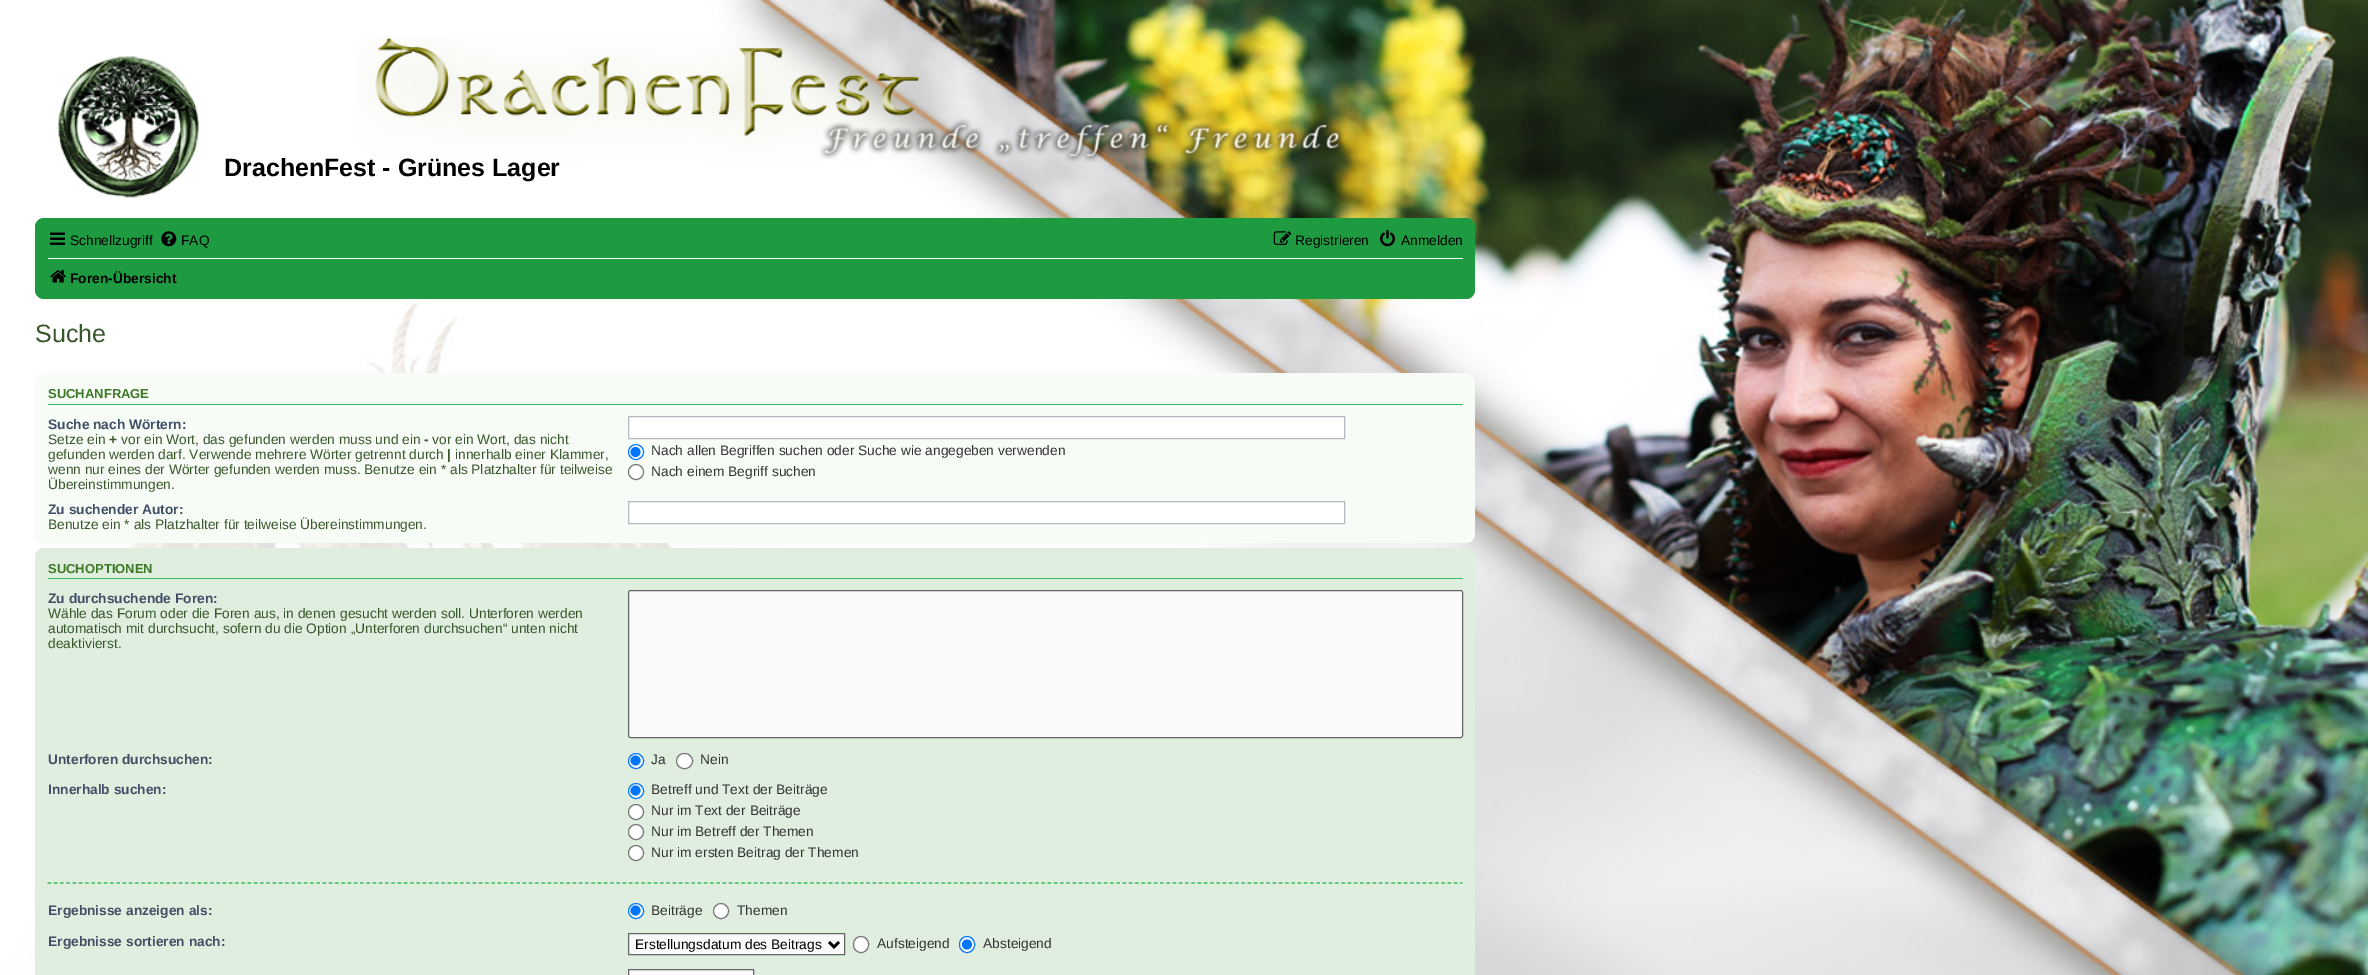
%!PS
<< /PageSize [2368 975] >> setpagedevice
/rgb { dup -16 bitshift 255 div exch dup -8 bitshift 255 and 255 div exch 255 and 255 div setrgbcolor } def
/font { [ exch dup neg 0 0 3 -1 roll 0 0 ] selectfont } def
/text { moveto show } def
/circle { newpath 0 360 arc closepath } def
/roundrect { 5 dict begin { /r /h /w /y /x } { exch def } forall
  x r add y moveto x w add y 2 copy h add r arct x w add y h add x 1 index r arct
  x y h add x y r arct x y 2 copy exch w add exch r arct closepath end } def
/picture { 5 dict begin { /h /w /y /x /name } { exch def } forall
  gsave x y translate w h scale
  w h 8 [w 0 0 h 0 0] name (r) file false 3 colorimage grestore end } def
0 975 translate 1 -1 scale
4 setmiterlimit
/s1 { /LiberationSans-Bold 25 font 16#000000 rgb } def
/s2 { /LiberationSans-Regular 13.75 font 16#000000 rgb } def
/s3 { /LiberationSans-Bold 13.75 font 16#000000 rgb } def
/s4 { /LiberationSans-Regular 25 font 16#37572A rgb } def
/s5 { /LiberationSans-Bold 13 font 16#3E7927 rgb } def
/s6 { /LiberationSans-Bold 13.75 font 16#425067 rgb } def
/s7 { /LiberationSans-Regular 13.75 font 16#37572A rgb } def
/s8 { /LiberationSans-Bold 13.75 font 16#37572A rgb } def
/s9 { /LiberationSans-Regular 13.75 font 16#333333 rgb } def
16#FFFFFF rgb
0 0 2368 975 rectfill
(pic1.raw) 0 0 2368 975 picture
(pic2.raw) 356 35 988 128 picture
(pic3.raw) 57 56 142 142 picture
s1
(DrachenFest - Grünes Lager) 224 176 text
16#1E9A41 rgb
35 218 1440 81 9 roundrect fill
(pic4.raw) 50 232 15 13 picture
s2
(Schnellzugriff) 70 245 text
(pic5.raw) 161 231 16 16 picture
(FAQ) 181 245 text
(pic6.raw) 1273 231 19 14 picture
(Registrieren) 1295 245 text
(pic7.raw) 1380 230 15 17 picture
(Anmelden) 1401 245 text
16#FFFFFF rgb
48 258 1415 1 rectfill
(pic8.raw) 50 270 16 13 picture
s3
(Foren-Übersicht) 70 283 text
s4
(Suche) 35 342 text
16#F8FCF7 rgb
35 373 1440 170 9 roundrect fill
16#36BD59 rgb
48 404 1415 1 rectfill
s5
(SUCHANFRAGE) 48 398 text
s6
(Suche nach Wörtern:) 48 429 text
s7
(Setze ein) 48 444 text
s8
(+) 109 444 text
s7
(vor ein Wort, das gefunden werden muss und ein) 121 444 text
s8
(-) 424 444 text
s7
(vor ein Wort, das nicht) 432 444 text
(gefunden werden darf. Verwende mehrere Wörter getrennt durch) 48 459 text
s8
(|) 447 459 text
s7
(innerhalb einer Klammer,) 455 459 text
(wenn nur eines der Wörter gefunden werden muss. Benutze ein * als Platzhalter für teilweise) 48 474 text
(Übereinstimmungen.) 48 489 text
16#FFFFFF rgb
628.5 416.5 moveto 1344.5 416.5 lineto 1344.5 438.5 lineto 628.5 438.5 lineto closepath gsave fill grestore
16#B4BAC0 rgb
stroke
16#FFFFFF rgb
636 452 7.5 circle gsave fill grestore
16#0075FF rgb
stroke
635.5 452 5 circle fill
s9
(Nach allen Begriffen suchen oder Suche wie angegeben verwenden) 651 455 text
16#FFFFFF rgb
636 472 7.5 circle gsave fill grestore
16#767676 rgb
stroke
s9
(Nach einem Begriff suchen) 651 476 text
s6
(Zu suchender Autor:) 48 514 text
s7
(Benutze ein * als Platzhalter für teilweise Übereinstimmungen.) 48 529 text
16#FFFFFF rgb
628.5 501.5 moveto 1344.5 501.5 lineto 1344.5 523.5 lineto 628.5 523.5 lineto closepath gsave fill grestore
16#B4BAC0 rgb
stroke
16#DFEEDE rgb
35 548 1440 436 9 roundrect fill
16#36BD59 rgb
48 578 1415 1 rectfill
s5
(SUCHOPTIONEN) 48 573 text
s6
(Zu durchsuchende Foren:) 48 603 text
s7
(Wähle das Forum oder die Foren aus, in denen gesucht werden soll. Unterforen werden) 48 618 text
(automatisch mit durchsucht, sofern du die Option „Unterforen durchsuchen“ unten nicht) 48 633 text
(deaktivierst.) 48 648 text
16#FAFAFA rgb
628.5 590.5 834 147 2 roundrect gsave fill grestore
16#666666 rgb
stroke
s6
(Unterforen durchsuchen:) 48 764 text
16#FFFFFF rgb
636 761 7.5 circle gsave fill grestore
16#0075FF rgb
stroke
635.5 760.5 5 circle fill
s9
(Ja) 651 764 text
16#FFFFFF rgb
676.5 753.5 16 15 7.5 roundrect gsave fill grestore
16#767676 rgb
stroke
s9
(Nein) 700 764 text
s6
(Innerhalb suchen:) 48 794 text
16#FFFFFF rgb
636 791 7.5 circle gsave fill grestore
16#0075FF rgb
stroke
635.5 790.5 5 circle fill
s9
(Betreff und Text der Beiträge) 651 794 text
16#FFFFFF rgb
636 812 7.5 circle gsave fill grestore
16#767676 rgb
stroke
s9
(Nur im Text der Beiträge) 651 815 text
16#FFFFFF rgb
636 832 7.5 circle gsave fill grestore
16#767676 rgb
stroke
s9
(Nur im Betreff der Themen) 651 836 text
16#FFFFFF rgb
636 853 7.5 circle gsave fill grestore
16#767676 rgb
stroke
s9
(Nur im ersten Beitrag der Themen) 651 857 text
16#36BD59 rgb
1.2 setlinewidth
[3.75 2.5] 0 setdash
47.5 883 moveto 1462.5 883 lineto stroke
s6
(Ergebnisse anzeigen als:) 48 915 text
16#FFFFFF rgb
636 911 7.5 circle gsave fill grestore
16#0075FF rgb
1 setlinewidth
[] 0 setdash
stroke
635.5 910.5 5 circle fill
s9
(Beiträge) 651 915 text
16#FFFFFF rgb
721 911 7.5 circle gsave fill grestore
16#767676 rgb
stroke
s9
(Themen) 737 915 text
s6
(Ergebnisse sortieren nach:) 48 946 text
16#FAFAFA rgb
628.5 933.5 moveto 844.5 933.5 lineto 844.5 954.5 lineto 628.5 954.5 lineto closepath gsave fill grestore
16#666666 rgb
stroke
16#000000 rgb
2.5 setlinewidth
829 942 moveto 834 947 lineto 839 942 lineto stroke
s2
(Erstellungsdatum des Beitrags) 635 949 text
16#FFFFFF rgb
853.5 936.5 15 16 7.5 roundrect gsave fill grestore
16#767676 rgb
1 setlinewidth
stroke
s9
(Aufsteigend) 877 948 text
16#FFFFFF rgb
959.5 936.5 15 16 7.5 roundrect gsave fill grestore
16#0075FF rgb
stroke
967 944.5 5 circle fill
s9
(Absteigend) 983 948 text
16#FAFAFA rgb
628.5 969.5 moveto 753.5 969.5 lineto 753.5 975.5 lineto 628.5 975.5 lineto closepath gsave fill grestore
16#666666 rgb
stroke
showpage
